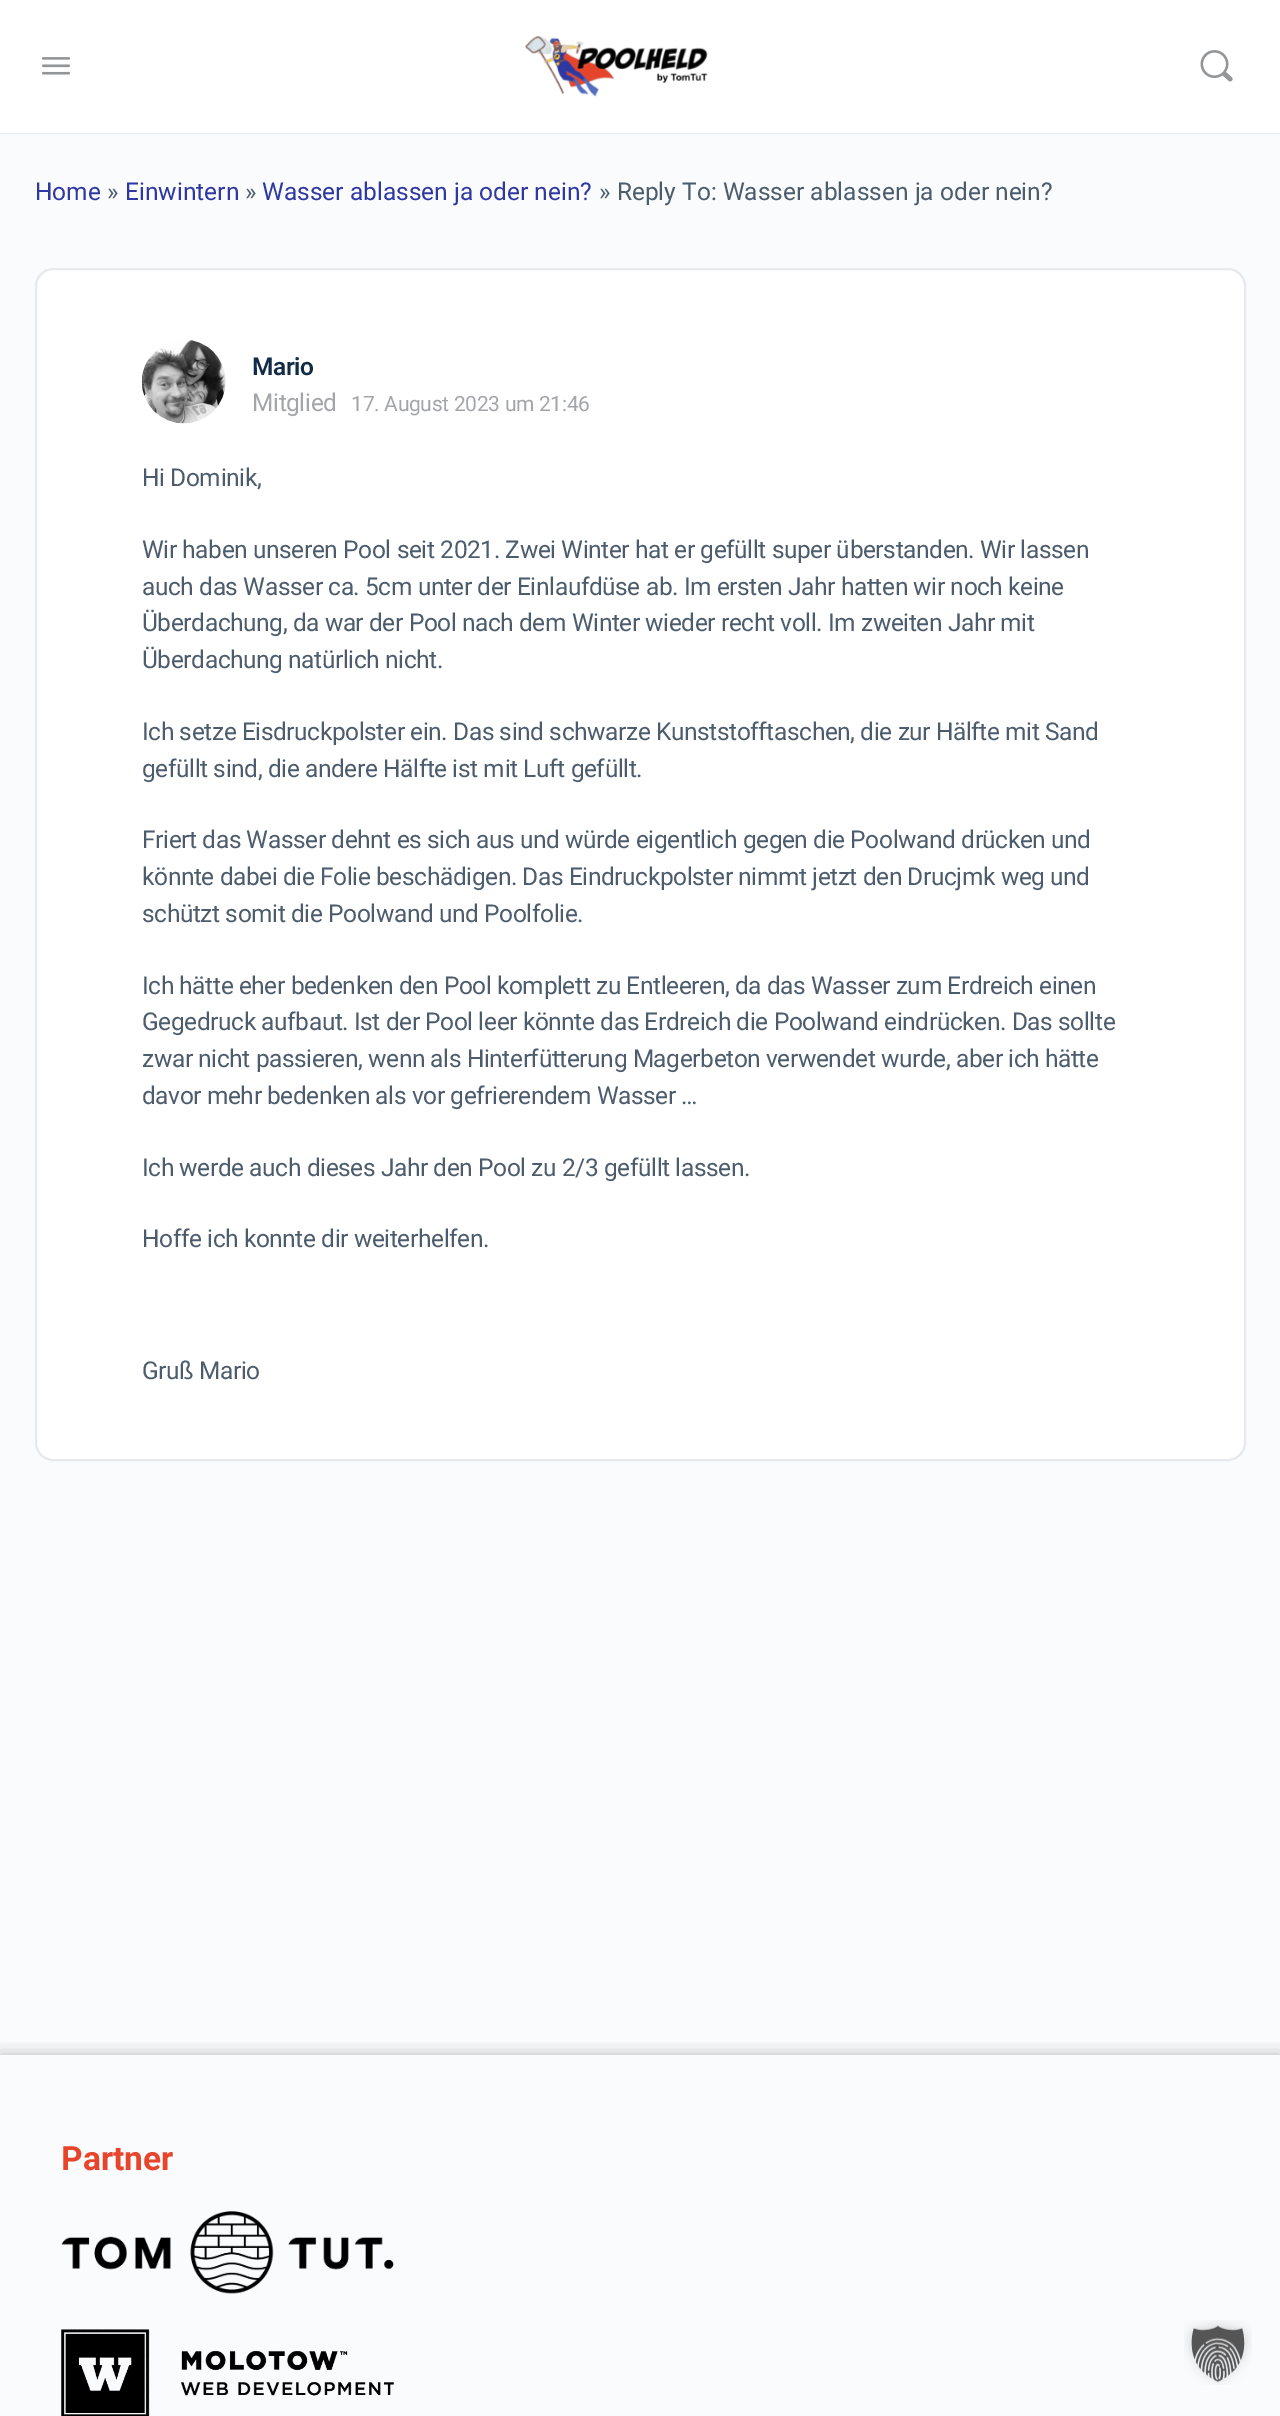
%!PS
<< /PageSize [1280 2416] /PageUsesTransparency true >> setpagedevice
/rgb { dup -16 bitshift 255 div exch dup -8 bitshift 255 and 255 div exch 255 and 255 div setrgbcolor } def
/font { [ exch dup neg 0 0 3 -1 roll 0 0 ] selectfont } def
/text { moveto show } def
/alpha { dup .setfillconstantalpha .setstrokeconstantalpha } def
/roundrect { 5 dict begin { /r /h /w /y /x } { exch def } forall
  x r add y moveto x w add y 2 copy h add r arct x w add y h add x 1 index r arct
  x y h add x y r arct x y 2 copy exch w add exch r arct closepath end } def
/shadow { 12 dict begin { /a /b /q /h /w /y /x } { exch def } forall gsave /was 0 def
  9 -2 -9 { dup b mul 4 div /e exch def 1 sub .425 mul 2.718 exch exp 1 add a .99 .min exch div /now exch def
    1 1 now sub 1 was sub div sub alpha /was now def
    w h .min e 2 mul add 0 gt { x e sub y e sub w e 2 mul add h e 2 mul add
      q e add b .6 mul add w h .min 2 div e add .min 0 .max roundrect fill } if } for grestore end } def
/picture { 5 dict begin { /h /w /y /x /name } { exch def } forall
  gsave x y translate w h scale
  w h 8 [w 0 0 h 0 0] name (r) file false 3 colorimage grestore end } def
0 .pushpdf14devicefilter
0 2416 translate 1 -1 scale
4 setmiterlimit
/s1 { /Roboto-Regular 24.5 font 16#2F38A0 rgb } def
/s2 { /Roboto-Regular 24.5 font 16#4D5C6D rgb } def
/s3 { /Roboto-Bold 33.5 font 16#E7452B rgb } def
16#FAFBFD rgb
0 0 1280 2416 rectfill
16#41476C rgb
0 0 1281 133 0 1 0.15 shadow
0.05 alpha
16#8B8D9D rgb
0 133 1280 2 rectfill
1 alpha
16#FFFFFF rgb
0 0 1280 133 rectfill
(pic1.raw) 42 57 28 18 picture
(pic2.raw) 525 35 183 62 picture
(pic3.raw) 1200 50 33 32 picture
s1
(Home) 35 200 text
s2
(») 107 200 text
s1
(Einwintern) 125 200 text
s2
(») 245 200 text
s1
(Wasser ablassen ja oder nein?) 262 200 text
s2
(» Reply To: Wasser ablassen ja oder nein?) 599 200 text
16#FFFFFF rgb
36 269 1209 1191 17 roundrect gsave fill grestore
16#E7E9EC rgb
2 setlinewidth
stroke
(pic4.raw) 141 340 85 84 picture
/Roboto-SemiBold 24.5 font
16#122B46 rgb
252 375 moveto -0.42 0 (Mario) ashow
/Roboto-Regular 24.5 font
16#A3A5A9 rgb
252 411 moveto -0.42 0 (Mitglied) ashow
/Roboto-Regular 21 font
351 411 moveto -0.3 0 (17. August 2023 um 21:46) ashow
/Roboto-Regular 24.5 font
16#4D5C6D rgb
142 486 moveto -0.42 0 (Hi Dominik,) ashow
142 558 moveto -0.42 0 (Wir haben unseren Pool seit 2021. Zwei Winter hat er gefüllt super überstanden. Wir lassen) ashow
142 595 moveto -0.42 0 (auch das Wasser ca. 5cm unter der Einlaufdüse ab. Im ersten Jahr hatten wir noch keine) ashow
142 631 moveto -0.42 0 (Überdachung, da war der Pool nach dem Winter wieder recht voll. Im zweiten Jahr mit) ashow
142 668 moveto -0.42 0 (Überdachung natürlich nicht.) ashow
142 740 moveto -0.42 0 (Ich setze Eisdruckpolster ein. Das sind schwarze Kunststofftaschen, die zur Hälfte mit Sand) ashow
142 777 moveto -0.42 0 (gefüllt sind, die andere Hälfte ist mit Luft gefüllt.) ashow
142 848 moveto -0.42 0 (Friert das Wasser dehnt es sich aus und würde eigentlich gegen die Poolwand drücken und) ashow
142 885 moveto -0.42 0 (könnte dabei die Folie beschädigen. Das Eindruckpolster nimmt jetzt den Drucjmk weg und) ashow
142 922 moveto -0.42 0 (schützt somit die Poolwand und Poolfolie.) ashow
142 994 moveto -0.42 0 (Ich hätte eher bedenken den Pool komplett zu Entleeren, da das Wasser zum Erdreich einen) ashow
142 1030 moveto -0.42 0 (Gegedruck aufbaut. Ist der Pool leer könnte das Erdreich die Poolwand eindrücken. Das sollte) ashow
142 1067 moveto -0.42 0 (zwar nicht passieren, wenn als Hinterfütterung Magerbeton verwendet wurde, aber ich hätte) ashow
142 1104 moveto -0.42 0 (davor mehr bedenken als vor gefrierendem Wasser …) ashow
142 1176 moveto -0.42 0 (Ich werde auch dieses Jahr den Pool zu 2/3 gefüllt lassen.) ashow
142 1247 moveto -0.42 0 (Hoffe ich konnte dir weiterhelfen.) ashow
142 1379 moveto -0.42 0 (Gruß Mario) ashow
gsave
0 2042 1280 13 rectclip
16#000000 rgb
0 2055 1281 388 0 9 0.25 shadow
grestore
s3
(Partner) 61 2170 text
(pic5.raw) 61 2211 333 83 picture
(pic6.raw) 61 2329 333 87 picture
(pic7.raw) 1184 2320 68 65 picture
.poppdf14devicefilter showpage
